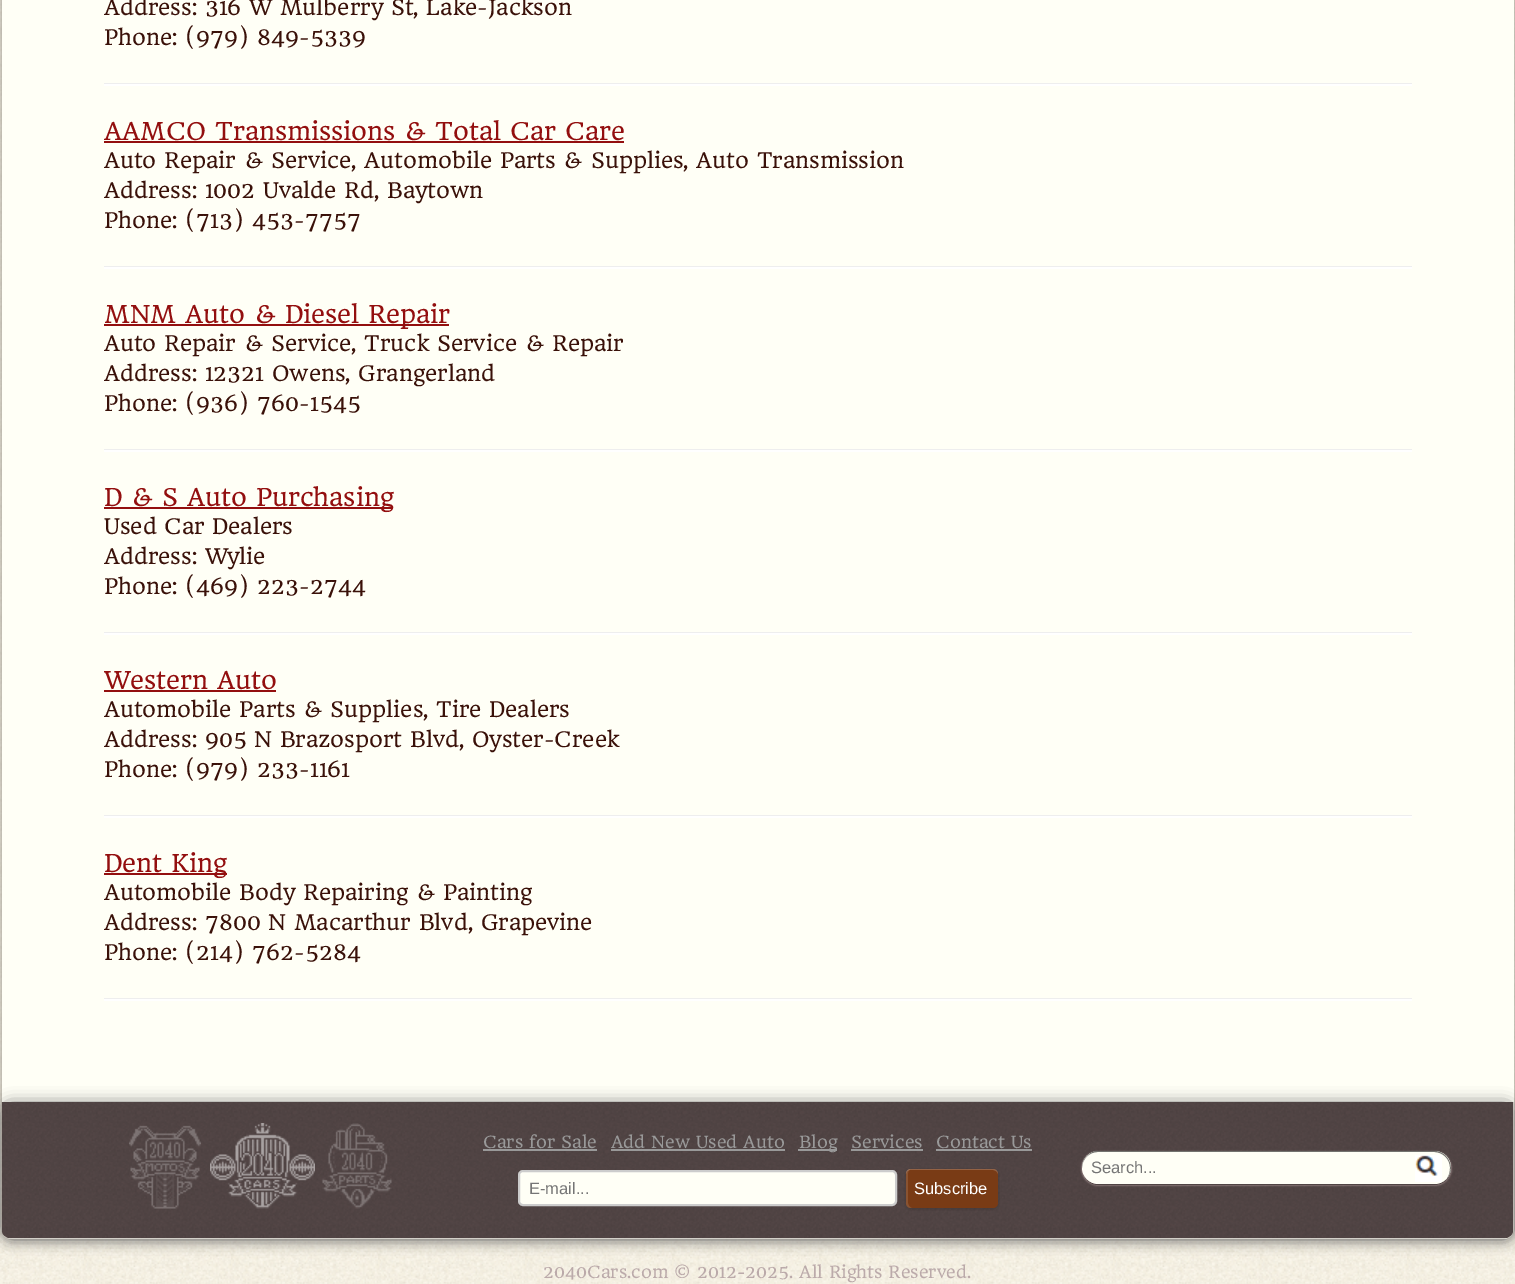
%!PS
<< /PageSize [1515 1284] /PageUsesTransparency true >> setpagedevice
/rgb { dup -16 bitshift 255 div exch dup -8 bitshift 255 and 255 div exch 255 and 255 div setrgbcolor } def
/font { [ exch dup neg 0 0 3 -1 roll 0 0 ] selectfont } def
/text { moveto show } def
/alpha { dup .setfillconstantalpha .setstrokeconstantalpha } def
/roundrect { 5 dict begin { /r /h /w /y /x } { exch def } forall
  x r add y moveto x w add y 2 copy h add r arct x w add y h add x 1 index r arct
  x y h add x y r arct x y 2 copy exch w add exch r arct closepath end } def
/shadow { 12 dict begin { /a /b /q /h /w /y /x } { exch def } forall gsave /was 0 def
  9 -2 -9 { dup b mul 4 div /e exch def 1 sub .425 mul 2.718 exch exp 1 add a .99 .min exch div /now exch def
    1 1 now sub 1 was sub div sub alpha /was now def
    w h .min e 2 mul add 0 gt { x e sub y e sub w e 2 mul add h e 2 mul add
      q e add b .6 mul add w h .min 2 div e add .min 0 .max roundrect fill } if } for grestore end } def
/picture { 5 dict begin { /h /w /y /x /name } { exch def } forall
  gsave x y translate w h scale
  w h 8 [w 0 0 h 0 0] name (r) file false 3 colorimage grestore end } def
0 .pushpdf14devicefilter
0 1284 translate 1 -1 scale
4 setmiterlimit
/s1 { /HeadlandOne-Regular 21 font 16#3A1109 rgb } def
/s2 { /HeadlandOne-Regular 24 font 16#930F0F rgb } def
/s3 { /HeadlandOne-Regular 16.5 font 16#999999 rgb } def
/s4 { /LiberationSans-Regular 16.5 font 16#757575 rgb } def
/s5 { /LiberationSans-Regular 16.5 font 16#FFFFFF rgb } def
/s6 { /HeadlandOne-Regular 16.5 font 16#BBAAAA rgb } def
16#FFFFFF rgb
0 0 1515 1284 rectfill
(pic1.raw) 0 0 1515 1284 picture
16#8E8B82 rgb
2 -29 1512 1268 11 6 1 shadow
16#FFFFF6 rgb
2 -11 1512 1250 11 roundrect fill
s1
(Address: 316 W Mulberry St, Lake-Jackson) 104 15 text
(Phone: \(979\) 849-5339) 104 45 text
16#EEEEEE rgb
104 83 1308 1 rectfill
16#FFFFFF rgb
104 84 1308 2 rectfill
s2
(AAMCO Transmissions & Total Car Care) 104 140 text
104 141 520 2 rectfill
s1
(Auto Repair & Service, Automobile Parts & Supplies, Auto Transmission) 104 168 text
(Address: 1002 Uvalde Rd, Baytown) 104 198 text
(Phone: \(713\) 453-7757) 104 228 text
16#EEEEEE rgb
104 266 1308 1 rectfill
16#FFFFFF rgb
104 267 1308 2 rectfill
16#930F0F rgb
104 324 345 2 rectfill
s2
(MNM Auto & Diesel Repair) 104 323 text
s1
(Auto Repair & Service, Truck Service & Repair) 104 351 text
(Address: 12321 Owens, Grangerland) 104 381 text
(Phone: \(936\) 760-1545) 104 411 text
16#EEEEEE rgb
104 449 1308 1 rectfill
16#FFFFFF rgb
104 450 1308 2 rectfill
16#930F0F rgb
104 507 289 2 rectfill
s2
(D & S Auto Purchasing) 104 506 text
s1
(Used Car Dealers) 104 534 text
(Address: Wylie) 104 564 text
(Phone: \(469\) 223-2744) 104 594 text
16#EEEEEE rgb
104 632 1308 1 rectfill
16#FFFFFF rgb
104 633 1308 2 rectfill
s2
(Western Auto) 104 689 text
104 690 172 2 rectfill
s1
(Automobile Parts & Supplies, Tire Dealers) 104 717 text
(Address: 905 N Brazosport Blvd, Oyster-Creek) 104 747 text
(Phone: \(979\) 233-1161) 104 777 text
16#EEEEEE rgb
104 815 1308 1 rectfill
16#FFFFFF rgb
104 816 1308 2 rectfill
16#930F0F rgb
104 873 123 2 rectfill
s2
(Dent King) 104 872 text
s1
(Automobile Body Repairing & Painting) 104 900 text
(Address: 7800 N Macarthur Blvd, Grapevine) 104 930 text
(Phone: \(214\) 762-5284) 104 960 text
16#EEEEEE rgb
104 998 1308 1 rectfill
16#FFFFFF rgb
104 999 1308 2 rectfill
16#7B7B7B rgb
2 1103 1512 136 9 7.5 1 shadow
(pic2.raw) 1 1102 1513 137 picture
(pic3.raw) 129 1125 72 84 picture
(pic4.raw) 210 1123 105 86 picture
(pic5.raw) 322 1123 70 86 picture
s3
(Cars for Sale) 483 1148 text
483 1149 114 2 rectfill
(Add New Used Auto) 611 1148 text
611 1149 174 2 rectfill
798 1149 39 2 rectfill
(Blog) 799 1148 text
(Services) 851 1148 text
851 1149 72 2 rectfill
(Contact Us) 936 1148 text
936 1149 96 2 rectfill
16#CFB7B7 rgb
1082 1152 369 33 16.5 1 1 shadow
16#504444 rgb
1083 1173 moveto 1085 1180 1091 1185 1098 1185 curveto 1434 1185 lineto 1444 1185 1451 1178 1451 1168 curveto 1451 1166 1451 1164 1450 1163 curveto 1450 1167 lineto 1450 1176 1443 1184 1434 1184 curveto 1098 1184 lineto 1091 1184 1085 1179 1083 1173 curveto closepath fill
16#FFFFF6 rgb
1082 1151 369 33 16.5 roundrect fill
16#73736F rgb
1098 1152 moveto 1434 1152 lineto 1443 1152 1450 1159 1450 1168 curveto 1450 1172 1449 1176 1447 1178 curveto 1456 1168 1448 1151 1434 1151 curveto 1095 1151 lineto 1092 1152 1089 1154 1087 1156 curveto 1085 1158 lineto 1083 1161 1082 1164 1082 1168 curveto 1082 1159 1089 1152 1098 1152 curveto closepath fill
s4
(Search...) 1091 1173 text
16#FFFFFF rgb
1415 1155 27 27 rectfill
(pic6.raw) 1415 1155 23 21 picture
16#FFFFF6 rgb
519 1171 377 34 4 roundrect gsave fill grestore
16#CCCCCC rgb
2 setlinewidth
stroke
s4
(E-mail...) 529 1194 text
16#000000 rgb
906 1170 92 39 5 1.5 0.15 shadow
16#793B15 rgb
906 1169 92 39 5 roundrect fill
0.2 alpha
16#FFFFFF rgb
910 1170 moveto 993 1170 lineto 995 1170 998 1172 998 1174 curveto 998 1171 996 1169 993 1169 curveto 911 1169 lineto 908 1169 906 1171 906 1174 curveto 906 1172 908 1170 910 1170 curveto closepath fill
0.12 alpha
910 1169 moveto 907.5 1169.5 906 1171.5 906 1174 curveto 906 1203 lineto 906 1206 908 1208 911 1208 curveto 912 1208 lineto 910 1208 908 1205 908 1203 curveto 908 1173 lineto 908 1172 908.5 1170 910 1169 curveto closepath fill
1 alpha
(Subscribe) 914 1194 text
s6
(2040Cars.com © 2012-2025. All Rights Reserved.) 543 1278 text
.poppdf14devicefilter showpage
